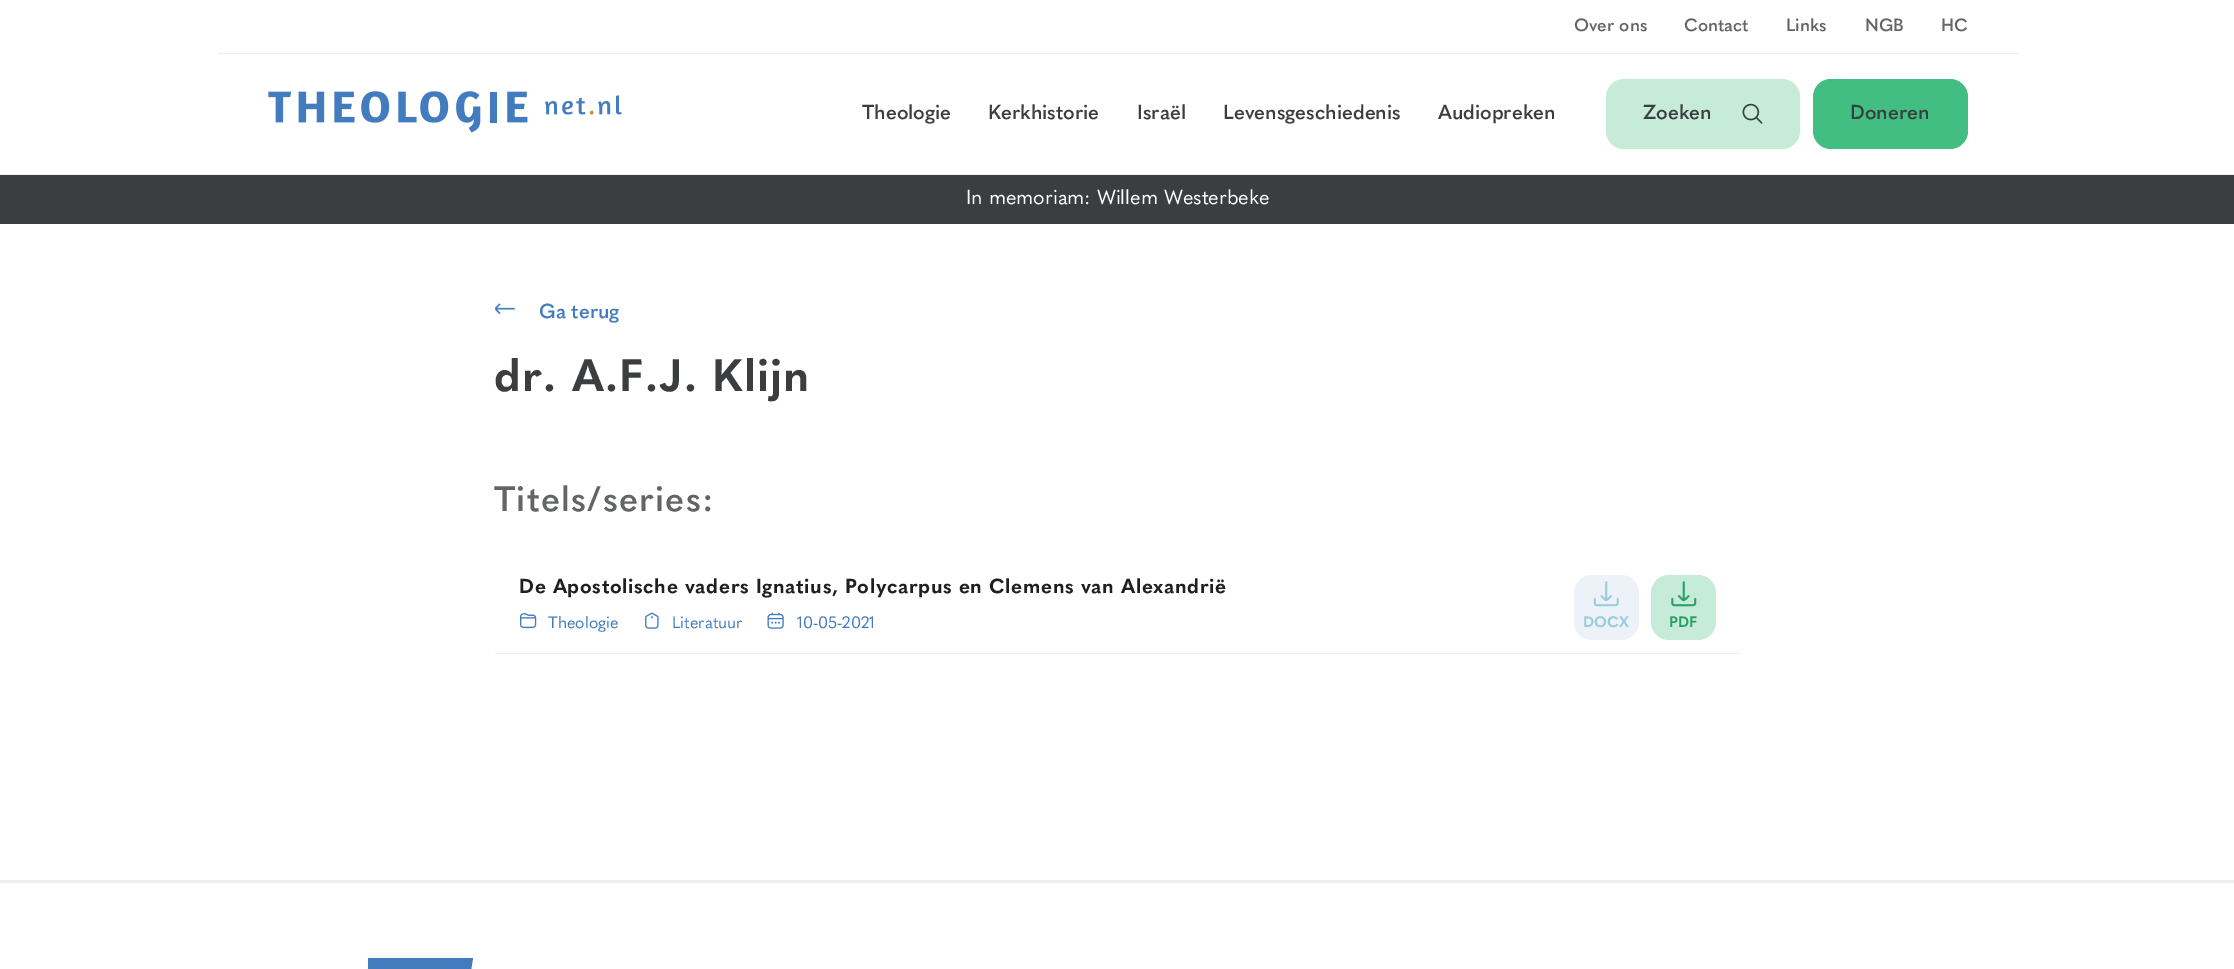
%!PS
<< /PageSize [2234 969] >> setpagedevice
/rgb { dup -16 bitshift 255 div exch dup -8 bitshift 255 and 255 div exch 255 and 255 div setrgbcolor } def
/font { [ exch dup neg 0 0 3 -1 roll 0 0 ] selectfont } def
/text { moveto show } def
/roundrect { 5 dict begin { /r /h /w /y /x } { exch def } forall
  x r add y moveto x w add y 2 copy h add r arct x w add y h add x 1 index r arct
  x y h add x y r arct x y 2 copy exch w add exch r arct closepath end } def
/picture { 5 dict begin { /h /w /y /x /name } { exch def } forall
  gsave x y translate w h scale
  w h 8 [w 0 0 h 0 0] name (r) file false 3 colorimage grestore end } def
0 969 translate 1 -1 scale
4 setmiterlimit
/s1 { /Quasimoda-SemiBold 17.5 font 16#626465 rgb } def
/s2 { /Quasimoda-SemiBold 20 font 16#3B3D3F rgb } def
/s3 { /Quasimoda-Regular 20 font 16#FFFFFF rgb } def
/s4 { /Quasimoda-SemiBold 20 font 16#427BBE rgb } def
/s5 { /Quasimoda-Regular 16.25 font 16#427BBE rgb } def
/s6 { /Quasimoda-Bold 15 font 16#97CDDB rgb } def
/s7 { /Quasimoda-Bold 15 font 16#28A167 rgb } def
16#FFFFFF rgb
0 0 2234 969 rectfill
16#EEEEEE rgb
0 174 2234 1 rectfill
218 53 1800 1 rectfill
s1
(Over ons) 1574 31 text
(Contact) 1684 31 text
(Links) 1786 31 text
(NGB) 1865 31 text
(HC) 1941 31 text
(pic1.raw) 268 91 354 42 picture
s2
(Theologie) 862 119 text
(Kerkhistorie) 988 119 text
(Israël) 1137 119 text
(Levensgeschiedenis) 1223 119 text
(Audiopreken) 1438 119 text
16#C6EBD9 rgb
1606 79 194 70 18 roundrect fill
s2
(Zoeken) 1643 119 text
(pic2.raw) 1742 103 21 21 picture
16#42BE82 rgb
1813 79 155 70 18 roundrect fill
s2
(Doneren) 1850 119 text
0 175 2234 49 rectfill
s3
(In memoriam: Willem Westerbeke) 966 204 text
(pic3.raw) 495 303 20 11 picture
s4
(Ga terug) 539 318 text
/Quasimoda-Bold 45 font
16#3B3D3F rgb
494 391 moveto 1.25 0 (dr. A.F.J. Klijn) ashow
/Quasimoda-SemiBold 35 font
16#626465 rgb
494 511 moveto 1.25 0 (Titels/series:) ashow
16#EEEEEE rgb
495 653 1246 1 rectfill
/Quasimoda-Bold 20 font
16#1D1F20 rgb
519 593 moveto 0.62 0 (De Apostolische vaders Ignatius, Polycarpus en Clemens van Alexandrië) ashow
(pic4.raw) 520 613 17 16 picture
s5
(Theologie) 548 628 text
(pic5.raw) 645 612 14 17 picture
(Literatuur) 672 628 text
(pic6.raw) 767 612 17 17 picture
(10-05-2021) 797 628 text
16#EDF2F9 rgb
1574 575 65 65 18 roundrect fill
(pic7.raw) 1593 581 26 26 picture
s6
(DOCX) 1583 627 text
16#C6EBD9 rgb
1651 575 65 65 18 roundrect fill
(pic8.raw) 1671 581 26 26 picture
s7
(PDF) 1669 627 text
16#EEEEEE rgb
0 880 2234 3 rectfill
16#427BBE rgb
473 958 moveto 469 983 lineto 436 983 lineto 436 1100 lineto 401 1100 lineto 401 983 lineto 368 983 lineto 368 958 lineto closepath fill
showpage
